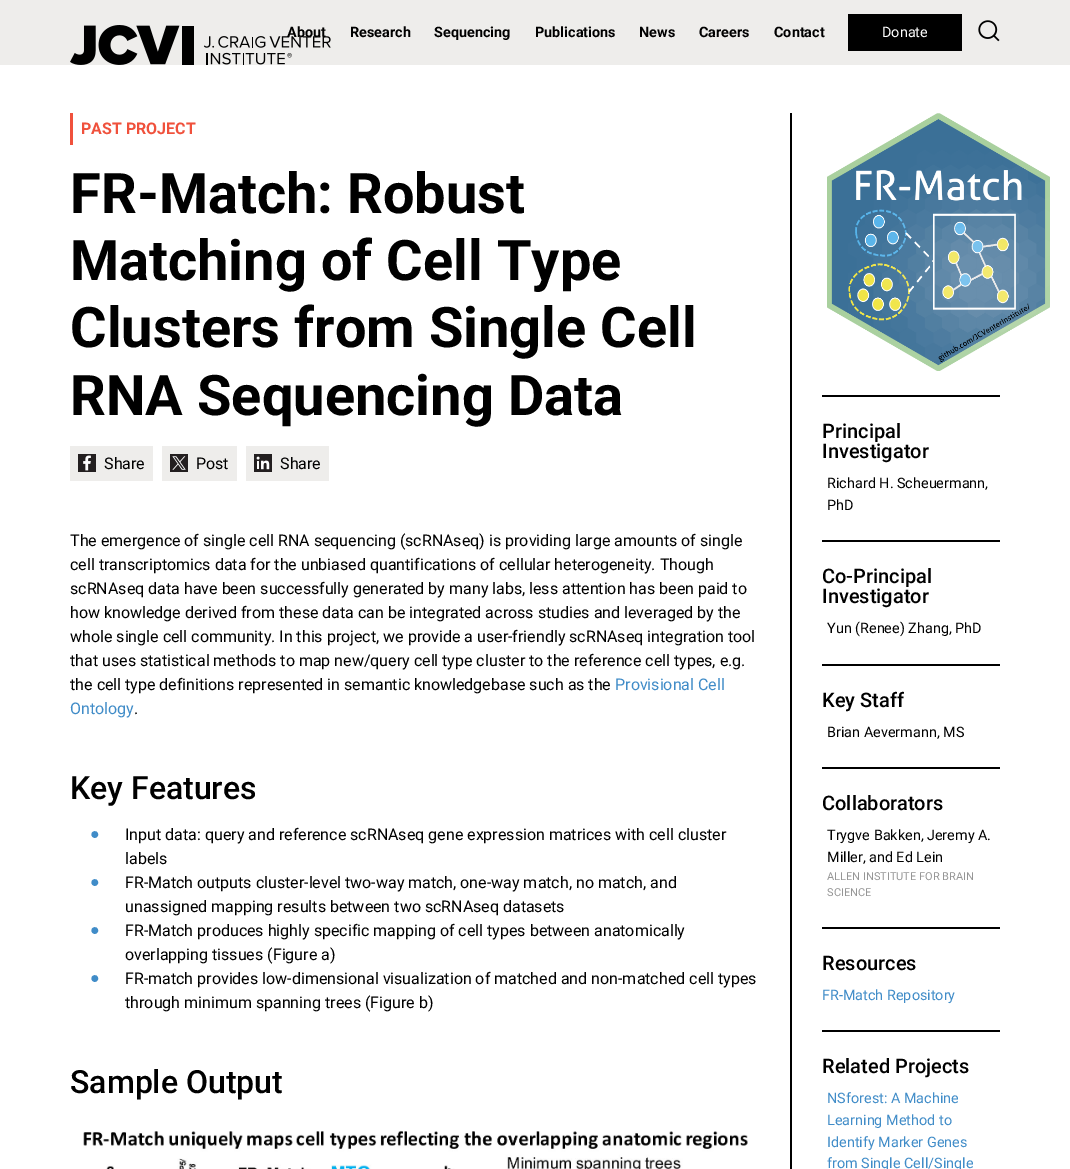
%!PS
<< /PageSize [1070 1169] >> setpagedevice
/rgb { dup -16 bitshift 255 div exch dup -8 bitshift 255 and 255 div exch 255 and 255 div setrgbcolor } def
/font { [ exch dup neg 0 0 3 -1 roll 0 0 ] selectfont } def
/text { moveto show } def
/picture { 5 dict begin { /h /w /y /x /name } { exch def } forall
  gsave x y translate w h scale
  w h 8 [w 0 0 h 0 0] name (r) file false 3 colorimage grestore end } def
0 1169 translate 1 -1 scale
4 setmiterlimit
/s1 { /Roboto-Bold 14.4 font 16#000000 rgb } def
/s2 { /Roboto-Regular 14.4 font 16#FFFFFF rgb } def
/s3 { /Roboto-Bold 16 font 16#F0513C rgb } def
/s4 { /Roboto-Bold 56 font 16#000000 rgb } def
/s5 { /Roboto-Regular 16 font 16#000000 rgb } def
/s6 { /Roboto-Regular 16 font 16#408CC8 rgb } def
/s7 { /Roboto-Medium 32 font 16#000000 rgb } def
/s8 { /LiberationSans-Regular 16 font 16#408CC8 rgb } def
/s9 { /Roboto-Medium 20 font 16#000000 rgb } def
/s10 { /Roboto-Regular 14.4 font 16#000000 rgb } def
/s11 { /Roboto-Regular 11 font 16#969696 rgb } def
/s12 { /Roboto-Regular 14.4 font 16#408CC8 rgb } def
16#EEEDEB rgb
0 0 1070 1169 rectfill
(pic1.raw) 70 25 261 40 picture
s1
(About) 287 37 text
(Research) 350 37 text
(Sequencing) 434 37 text
(Publications) 535 37 text
(News) 639 37 text
(Careers) 699 37 text
(Contact) 774 37 text
848 14 114 37 rectfill
s2
(Donate) 882 37 text
(pic2.raw) 978 20 22 22 picture
0 65 1070 1104 rectfill
16#F0513C rgb
70 113 3 32 rectfill
s3
(PAST PROJECT) 81 134 text
s4
(FR-Match: Robust) 70 213 text
(Matching of Cell Type) 70 280 text
(Clusters from Single Cell) 70 347 text
(RNA Sequencing Data) 70 415 text
16#EEEDEB rgb
70 446 83 35 rectfill
(pic3.raw) 78 454 18 18 picture
s5
(Share) 104 469 text
16#EEEDEB rgb
162 446 75 35 rectfill
(pic4.raw) 170 454 18 18 picture
s5
(Post) 196 469 text
16#EEEDEB rgb
246 446 83 35 rectfill
(pic5.raw) 254 454 18 18 picture
s5
(Share) 280 469 text
(The emergence of single cell RNA sequencing \(scRNAseq\) is providing large amounts of single) 70 546 text
(cell transcriptomics data for the unbiased quantifications of cellular heterogeneity. Though) 70 570 text
(scRNAseq data have been successfully generated by many labs, less attention has been paid to) 70 594 text
(how knowledge derived from these data can be integrated across studies and leveraged by the) 70 618 text
(whole single cell community. In this project, we provide a user-friendly scRNAseq integration tool) 70 642 text
(that uses statistical methods to map new/query cell type cluster to the reference cell types, e.g.) 70 666 text
(the cell type definitions represented in semantic knowledgebase such as the) 70 690 text
s6
(Provisional Cell) 615 690 text
(Ontology) 70 714 text
s5
(.) 134 714 text
s7
(Key Features) 70 799 text
s8
(●) 90 839 text
s5
(Input data: query and reference scRNAseq gene expression matrices with cell cluster) 125 840 text
(labels) 125 864 text
s8
(●) 90 887 text
s5
(FR-Match outputs cluster-level two-way match, one-way match, no match, and) 125 888 text
(unassigned mapping results between two scRNAseq datasets) 125 912 text
s8
(●) 90 935 text
s5
(FR-Match produces highly specific mapping of cell types between anatomically) 125 936 text
(overlapping tissues \(Figure a\)) 125 960 text
s8
(●) 90 983 text
s5
(FR-match provides low-dimensional visualization of matched and non-matched cell types) 125 984 text
(through minimum spanning trees \(Figure b\)) 125 1008 text
s7
(Sample Output) 70 1093 text
(pic6.raw) 83 1130 665 39 picture
790 113 2 1056 rectfill
822 395 178 2 rectfill
(pic7.raw) 827 113 223 258 picture
822 540 178 2 rectfill
s9
(Principal) 822 438 text
(Investigator) 822 458 text
s10
(Richard H. Scheuermann,) 827 488 text
(PhD) 827 510 text
822 664 178 2 rectfill
s9
(Co-Principal) 822 583 text
(Investigator) 822 603 text
s10
(Yun \(Renee\) Zhang, PhD) 827 633 text
822 767 178 2 rectfill
s9
(Key Staff) 822 707 text
s10
(Brian Aevermann, MS) 827 737 text
822 927 178 2 rectfill
s9
(Collaborators) 822 810 text
s10
(Trygve Bakken, Jeremy A.) 827 840 text
(Miller, and Ed Lein) 827 862 text
s11
(ALLEN INSTITUTE FOR BRAIN) 827 880 text
(SCIENCE) 827 896 text
16#000000 rgb
822 1030 178 2 rectfill
s9
(Resources) 822 970 text
s12
(FR-Match Repository) 822 1000 text
s9
(Related Projects) 822 1073 text
s12
(NSforest: A Machine) 827 1103 text
(Learning Method to) 827 1125 text
(Identify Marker Genes) 827 1147 text
(from Single Cell/Single) 827 1168 text
showpage
